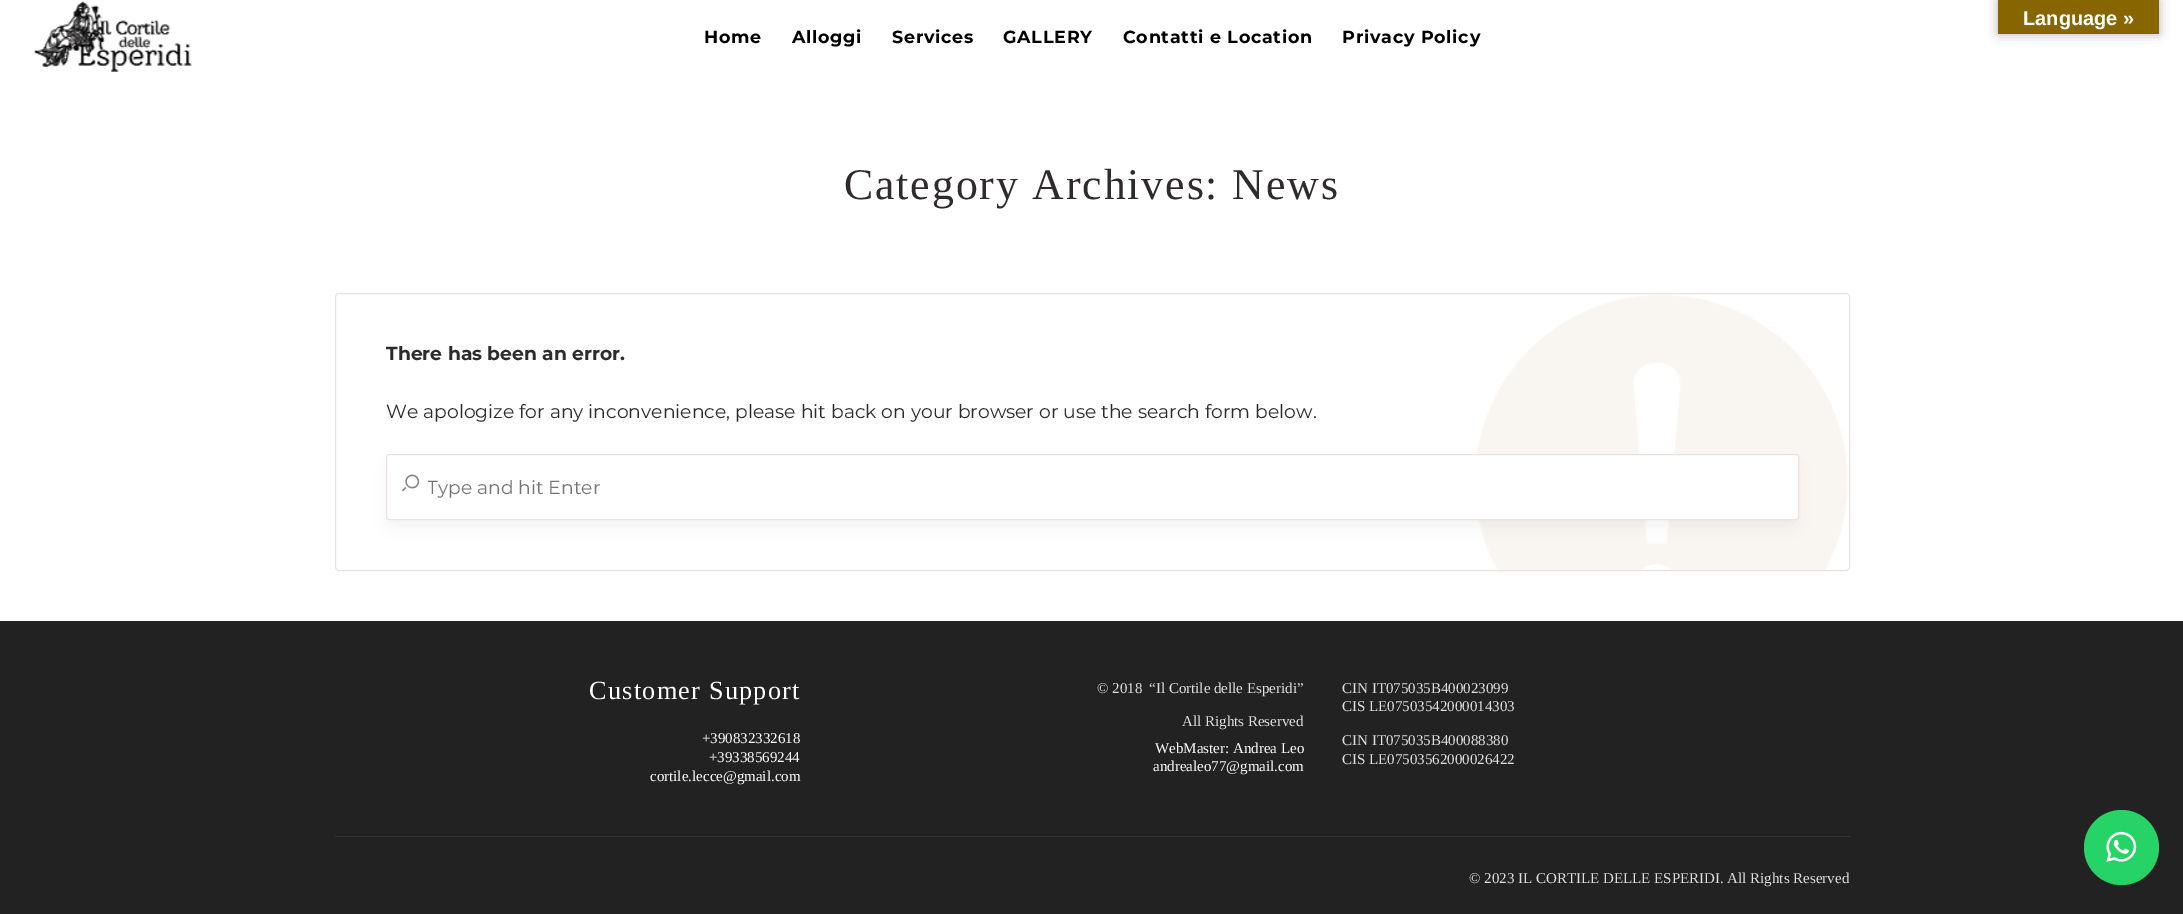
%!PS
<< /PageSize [2183 914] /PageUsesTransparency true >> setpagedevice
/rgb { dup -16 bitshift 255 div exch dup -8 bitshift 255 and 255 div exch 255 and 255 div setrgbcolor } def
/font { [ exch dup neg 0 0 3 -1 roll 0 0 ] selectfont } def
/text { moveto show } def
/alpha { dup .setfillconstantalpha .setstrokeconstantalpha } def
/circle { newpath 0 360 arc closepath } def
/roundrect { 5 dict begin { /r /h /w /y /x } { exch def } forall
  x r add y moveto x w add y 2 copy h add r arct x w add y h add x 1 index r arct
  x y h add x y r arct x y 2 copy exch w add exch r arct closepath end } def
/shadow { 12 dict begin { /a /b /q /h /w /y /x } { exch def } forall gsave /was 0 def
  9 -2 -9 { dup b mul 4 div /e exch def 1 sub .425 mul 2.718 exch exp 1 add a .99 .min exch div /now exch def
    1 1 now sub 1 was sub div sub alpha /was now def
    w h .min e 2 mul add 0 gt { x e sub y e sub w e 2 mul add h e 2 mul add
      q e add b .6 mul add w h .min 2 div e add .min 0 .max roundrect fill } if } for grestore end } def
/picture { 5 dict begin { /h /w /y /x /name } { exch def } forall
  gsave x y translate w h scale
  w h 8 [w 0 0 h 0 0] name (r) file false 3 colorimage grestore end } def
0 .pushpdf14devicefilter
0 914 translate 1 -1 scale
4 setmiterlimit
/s1 { /LiberationSans-Bold 20 font 16#FFFFFF rgb } def
/s2 { /Montserrat-Thin 18.75 font 16#2F2B2C rgb } def
/s3 { /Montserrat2-Thin 18.75 font 16#2F2B2C rgb } def
/s4 { /Montserrat2-Thin 18.75 font 16#757575 rgb } def
/s5 { /LiberationSerif-Regular 15 font 16#FFFFFF rgb } def
/s6 { /LiberationSerif-Regular 15 font 16#DFDFDF rgb } def
16#FFFFFF rgb
0 0 2183 914 rectfill
16#000000 rgb
1998 0 161 34 0 5.5 0.3 shadow
16#876501 rgb
1998 0 161 34 rectfill
s1
(Language ») 2023 25 text
(pic1.raw) 34 1 158 71 picture
/Montserrat-Thin 17.5 font
16#000000 rgb
704 43 moveto 0.75 0 (Home) ashow
792 43 moveto 0.75 0 (Alloggi) ashow
892 43 moveto 0.75 0 (Services) ashow
1003 43 moveto 0.75 0 (GALLERY) ashow
1123 43 moveto 0.75 0 (Contatti e Location) ashow
1342 43 moveto 0.75 0 (Privacy Policy) ashow
/LiberationSerif-Regular 43.75 font
16#2F2B2C rgb
844 199 moveto 1.9 0 (Category Archives: News) ashow
(pic2.raw) 1476 295 372 275 picture
16#E9E1E1 rgb
335.5 293.5 1514 277 3.5 roundrect stroke
s2
(There has been an error.) 386 360 text
s3
(We apologize for any inconvenience, please hit back on your browser or use the search form below.) 386 418 text
16#000000 rgb
391 469 1403 56 0 10 0.06 shadow
16#FFFFFF rgb
386.5 454.5 1412 65 2.5 roundrect gsave fill grestore
16#E9E1E1 rgb
stroke
(pic3.raw) 402 474 18 18 picture
gsave
428 475 1345 24 rectclip
s4
(Type and hit Enter) 427 494 text
grestore
16#222222 rgb
0 621 2183 293 rectfill
/LiberationSerif-Regular 26.25 font
16#FFFFFF rgb
589 699 moveto 1.25 0 (Customer Support) ashow
s5
(+390832332618) 702 743 text
(+39338569244) 709 762 text
(cortile.lecce@gmail.com) 650 781 text
s6
(© 2018) 1097 693 text
(“Il Cortile delle Esperidi”) 1149 693 text
(All Rights Reserved) 1182 726 text
s5
(WebMaster: Andrea Leo) 1155 753 text
(andrealeo77@gmail.com) 1153 771 text
s6
(CIN IT075035B400023099) 1342 693 text
(CIS LE07503542000014303) 1342 711 text
(CIN IT075035B400088380) 1342 745 text
(CIS LE07503562000026422) 1342 764 text
16#363636 rgb
335 836 1515 1 rectfill
s6
(© 2023 IL CORTILE DELLE ESPERIDI. All Rights Reserved) 1469 883 text
16#25D366 rgb
2121.5 847.5 37.5 circle fill
(pic4.raw) 2106 831 31 31 picture
.poppdf14devicefilter showpage
